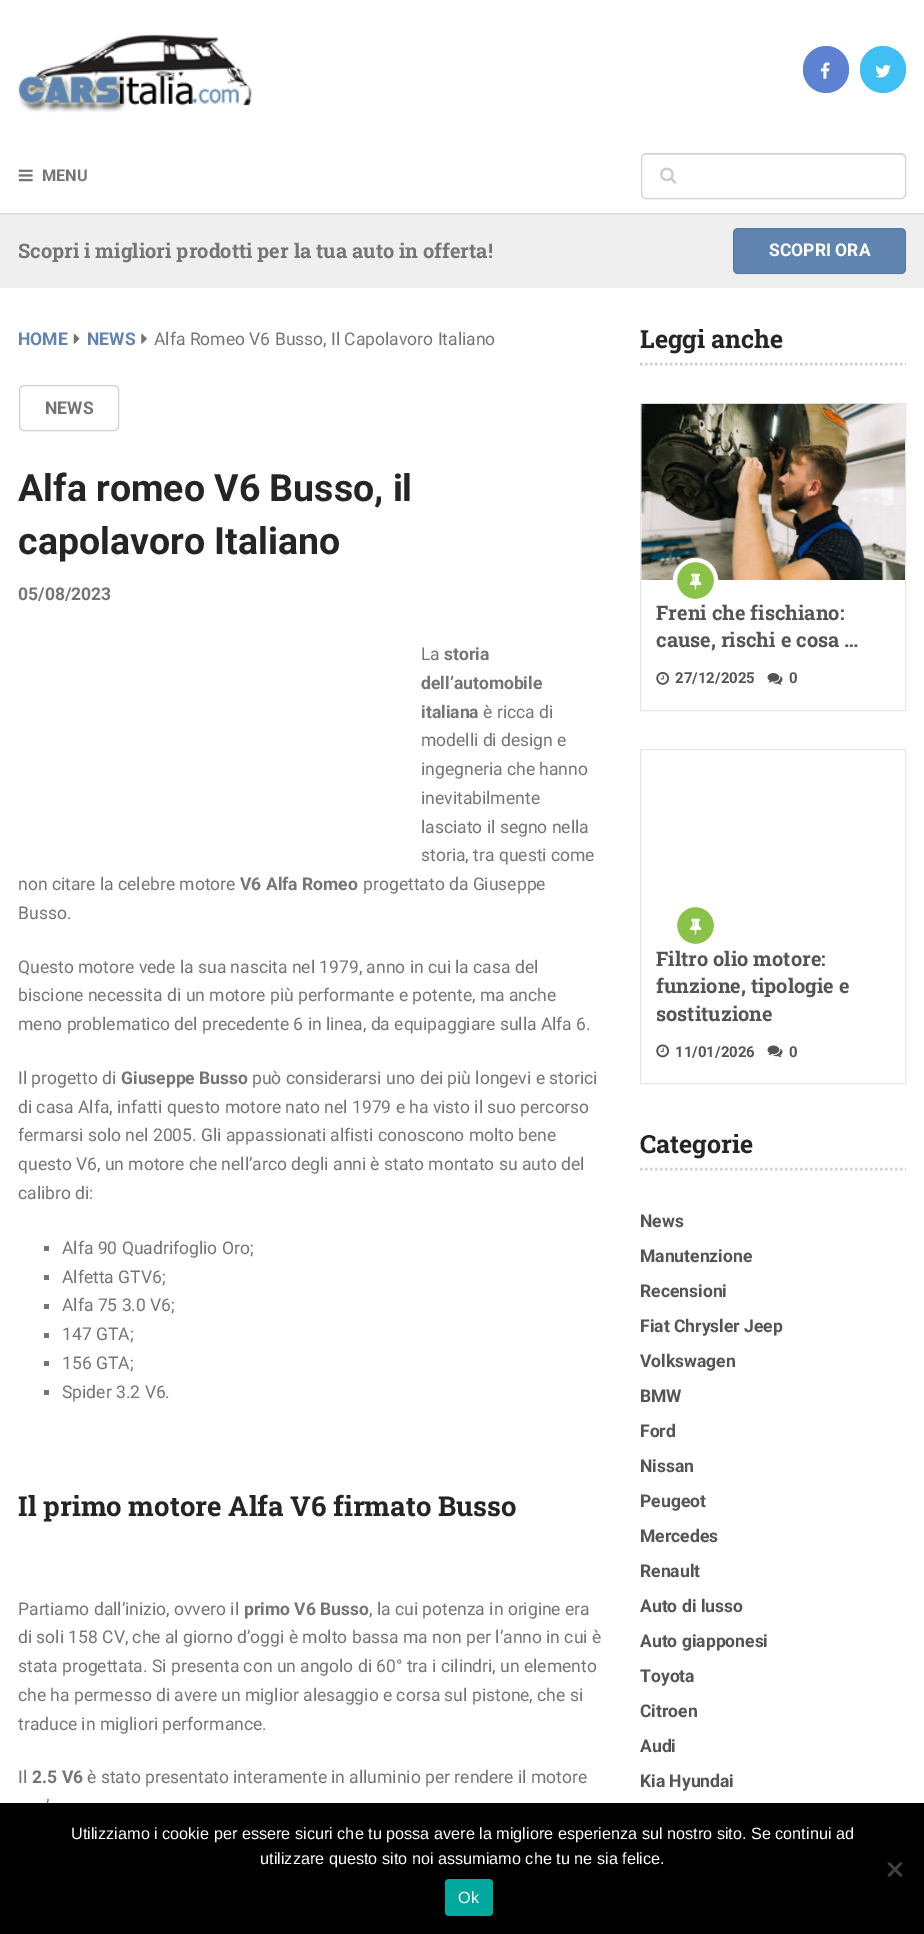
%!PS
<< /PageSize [924 1934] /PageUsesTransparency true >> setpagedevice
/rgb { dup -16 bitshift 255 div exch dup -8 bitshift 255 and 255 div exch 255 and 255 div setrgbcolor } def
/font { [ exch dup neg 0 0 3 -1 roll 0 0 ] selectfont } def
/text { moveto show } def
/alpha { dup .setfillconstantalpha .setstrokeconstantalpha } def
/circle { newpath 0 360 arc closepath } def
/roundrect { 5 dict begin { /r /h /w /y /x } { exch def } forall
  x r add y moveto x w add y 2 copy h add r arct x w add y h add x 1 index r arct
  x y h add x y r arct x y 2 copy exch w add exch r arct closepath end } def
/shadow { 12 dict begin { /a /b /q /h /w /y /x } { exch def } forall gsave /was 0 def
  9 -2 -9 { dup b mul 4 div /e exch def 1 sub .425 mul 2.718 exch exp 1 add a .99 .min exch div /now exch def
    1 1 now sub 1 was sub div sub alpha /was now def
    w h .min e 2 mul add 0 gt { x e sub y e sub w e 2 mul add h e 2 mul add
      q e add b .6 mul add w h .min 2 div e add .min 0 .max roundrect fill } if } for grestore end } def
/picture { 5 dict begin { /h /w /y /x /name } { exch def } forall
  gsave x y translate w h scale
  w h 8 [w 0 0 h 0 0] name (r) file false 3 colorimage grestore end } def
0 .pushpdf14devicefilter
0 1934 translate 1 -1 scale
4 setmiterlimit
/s1 { /Roboto-Bold 16.25 font 16#757575 rgb } def
/s2 { /RobotoSlab-Bold 20 font 16#757575 rgb } def
/s3 { /Roboto-Bold 17.5 font 16#FFFFFF rgb } def
/s4 { /Roboto-Bold 17.5 font 16#6184B0 rgb } def
/s5 { /Roboto-Regular 17.5 font 16#757575 rgb } def
/s6 { /Roboto-Bold 17.5 font 16#757575 rgb } def
/s7 { /Roboto-Bold 37.5 font 16#252525 rgb } def
/s8 { /RobotoSlab-Bold 27.5 font 16#252525 rgb } def
/s9 { /RobotoSlab-Bold 25 font 16#252525 rgb } def
/s10 { /RobotoSlab-Bold 20 font 16#555555 rgb } def
/s11 { /Roboto-Bold 15 font 16#555555 rgb } def
/s12 { /Roboto-Bold 17.5 font 16#555555 rgb } def
/s13 { /LiberationSans-Regular 16.25 font 16#FFFFFF rgb } def
16#EFEFEF rgb
0 0 924 1934 rectfill
16#FFFFFF rgb
0 0 924 138 rectfill
(pic1.raw) 18 34 234 79 picture
16#5D82D1 rgb
803 46 46 47 23 roundrect fill
(pic2.raw) 820 62 10 17 picture
16#40BFF5 rgb
860 46 46 47 23 roundrect fill
(pic3.raw) 875 65 16 13 picture
16#000000 rgb
0 139 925 75 0 0.5 0.1 shadow
16#FFFFFF rgb
0 138 924 75 rectfill
(pic4.raw) 18 169 15 13 picture
s1
(MENU) 42 181 text
16#E6E6E6 rgb
646 155 moveto 901 155 lineto 903 155 905 157 905 159 curveto 905 158 lineto 905 156 903 154 901 154 curveto 647 154 lineto 646 154 644 155 644 156 curveto closepath fill
16#D1D1D1 rgb
641.5 153.5 264 45 4.5 roundrect stroke
(pic5.raw) 660 167 17 17 picture
s2
(Scopri i migliori prodotti per la tua auto in offerta!) 18 258 text
16#6184B0 rgb
733 228 173 46 5 roundrect fill
0.1 alpha
16#000000 rgb
733.5 228.5 172 45 4.5 roundrect stroke
1 alpha
s3
(SCOPRI ORA) 769 256 text
0 288 924 1515 rectfill
s4
(HOME) 18 345 text
(pic6.raw) 73 333 7 11 picture
(NEWS) 87 345 text
(pic7.raw) 141 333 6 11 picture
s5
(Alfa Romeo V6 Busso, Il Capolavoro Italiano) 154 345 text
16#D1D1D1 rgb
19.5 385.5 99 45 4.5 roundrect stroke
s6
(NEWS) 45 414 text
s7
(Alfa romeo V6 Busso, il) 18 501 text
(capolavoro Italiano) 18 554 text
s6
(05/08/2023) 18 600 text
s5
(La) 421 660 text
s6
(storia) 444 660 text
(dell’automobile) 421 689 text
(italiana) 421 718 text
s5
(è ricca di) 483 718 text
(modelli di design e) 421 746 text
(ingegneria che hanno) 421 775 text
(inevitabilmente) 421 804 text
(lasciato il segno nella) 421 833 text
(storia, tra questi come) 421 861 text
(non citare la celebre motore) 18 890 text
s6
(V6 Alfa Romeo) 240 890 text
s5
(progettato da Giuseppe) 363 890 text
(Busso.) 18 919 text
(Questo motore vede la sua nascita nel 1979, anno in cui la casa del) 18 973 text
(biscione necessita di un motore più performante e potente, ma anche) 18 1001 text
(meno problematico del precedente 6 in linea, da equipaggiare sulla Alfa 6.) 18 1030 text
(Il progetto di) 18 1084 text
s6
(Giuseppe Busso) 121 1084 text
s5
(può considerarsi uno dei più longevi e storici) 252 1084 text
(di casa Alfa, infatti questo motore nato nel 1979 e ha visto il suo percorso) 18 1113 text
(fermarsi solo nel 2005. Gli appassionati alfisti conoscono molto bene) 18 1141 text
(questo V6, un motore che nell’arco degli anni è stato montato su auto del) 18 1170 text
(calibro di:) 18 1199 text
44 1246 5 5 rectfill
(Alfa 90 Quadrifoglio Oro;) 62 1254 text
44 1275 5 5 rectfill
(Alfetta GTV6;) 62 1283 text
44 1304 5 5 rectfill
(Alfa 75 3.0 V6;) 62 1311 text
44 1333 5 5 rectfill
(147 GTA;) 62 1340 text
44 1361 5 5 rectfill
(156 GTA;) 62 1369 text
44 1390 5 5 rectfill
(Spider 3.2 V6.) 62 1398 text
s8
(Il primo motore Alfa V6 firmato Busso) 18 1516 text
s5
(Partiamo dall’inizio, ovvero il) 18 1615 text
s6
(primo V6 Busso) 244 1615 text
s5
(, la cui potenza in origine era) 369 1615 text
(di soli 158 CV, che al giorno d’oggi è molto bassa ma non per l’anno in cui è) 18 1643 text
(stata progettata. Si presenta con un angolo di 60° tra i cilindri, un elemento) 18 1672 text
(che ha permesso di avere un miglior alesaggio e corsa sul pistone, che si) 18 1701 text
(traduce in migliori performance.) 18 1730 text
(Il) 18 1783 text
s6
(2.5 V6) 32 1783 text
s5
(è stato presentato interamente in alluminio per rendere il motore) 87 1783 text
(’) 46 1812 text
16#D1D1D1 rgb
2.5 setlinewidth
[2.5 2.5] 0 setdash
640 364 moveto 906 364 lineto stroke
s9
(Leggi anche) 640 348 text
16#E6E6E6 rgb
1 setlinewidth
[] 0 setdash
640.5 403.5 265 307 rectstroke
(pic8.raw) 641 403 264 177 picture
16#8BC34A rgb
695.5 580.5 20.5 circle gsave fill grestore
16#FFFFFF rgb
4 setlinewidth
stroke
(pic9.raw) 690 573 12 17 picture
s10
(Freni che fischiano:) 656 620 text
(cause, rischi e cosa …) 656 647 text
(pic10.raw) 656 672 14 13 picture
s11
(27/12/2025) 675 683 text
(pic11.raw) 767 673 16 12 picture
(0) 789 683 text
16#E6E6E6 rgb
1 setlinewidth
640.5 749.5 265 334 rectstroke
16#8BC34A rgb
695.5 925.5 20.5 circle gsave fill grestore
16#FFFFFF rgb
4 setlinewidth
stroke
(pic9.raw) 690 918 12 17 picture
s10
(Filtro olio motore:) 656 966 text
(funzione, tipologie e) 656 993 text
(sostituzione) 656 1021 text
(pic12.raw) 656 1044 14 14 picture
s11
(11/01/2026) 675 1057 text
(pic13.raw) 767 1045 16 13 picture
(0) 789 1057 text
16#D1D1D1 rgb
2.5 setlinewidth
[2.5 2.5] 0 setdash
640 1169 moveto 906 1169 lineto stroke
s9
(Categorie) 640 1153 text
s12
(News) 640 1227 text
(Manutenzione) 640 1262 text
(Recensioni) 640 1297 text
(Fiat Chrysler Jeep) 640 1332 text
(Volkswagen) 640 1367 text
(BMW) 640 1402 text
(Ford) 640 1437 text
(Nissan) 640 1472 text
(Peugeot) 640 1507 text
(Mercedes) 640 1542 text
(Renault) 640 1577 text
(Auto di lusso) 640 1612 text
(Auto giapponesi) 640 1647 text
(Toyota) 640 1682 text
(Citroen) 640 1717 text
(Audi) 640 1752 text
(Kia Hyundai) 640 1787 text
16#000000 rgb
0 1803 924 131 rectfill
s13
(Utilizziamo i cookie per essere sicuri che tu possa avere la migliore esperienza sul nostro sito. Se continui ad) 71 1839 text
(utilizzare questo sito noi assumiamo che tu ne sia felice.) 260 1864 text
16#404040 rgb
900.5 1862 moveto 902.5 1863.5 lineto 889.5 1877 lineto 887.5 1875 lineto closepath fill
887.5 1863.5 moveto 889.5 1862 lineto 902.5 1875 lineto 900.5 1877 lineto closepath fill
16#00A99D rgb
445 1879 48 37 4 roundrect fill
s13
(Ok) 458 1903 text
.poppdf14devicefilter showpage
